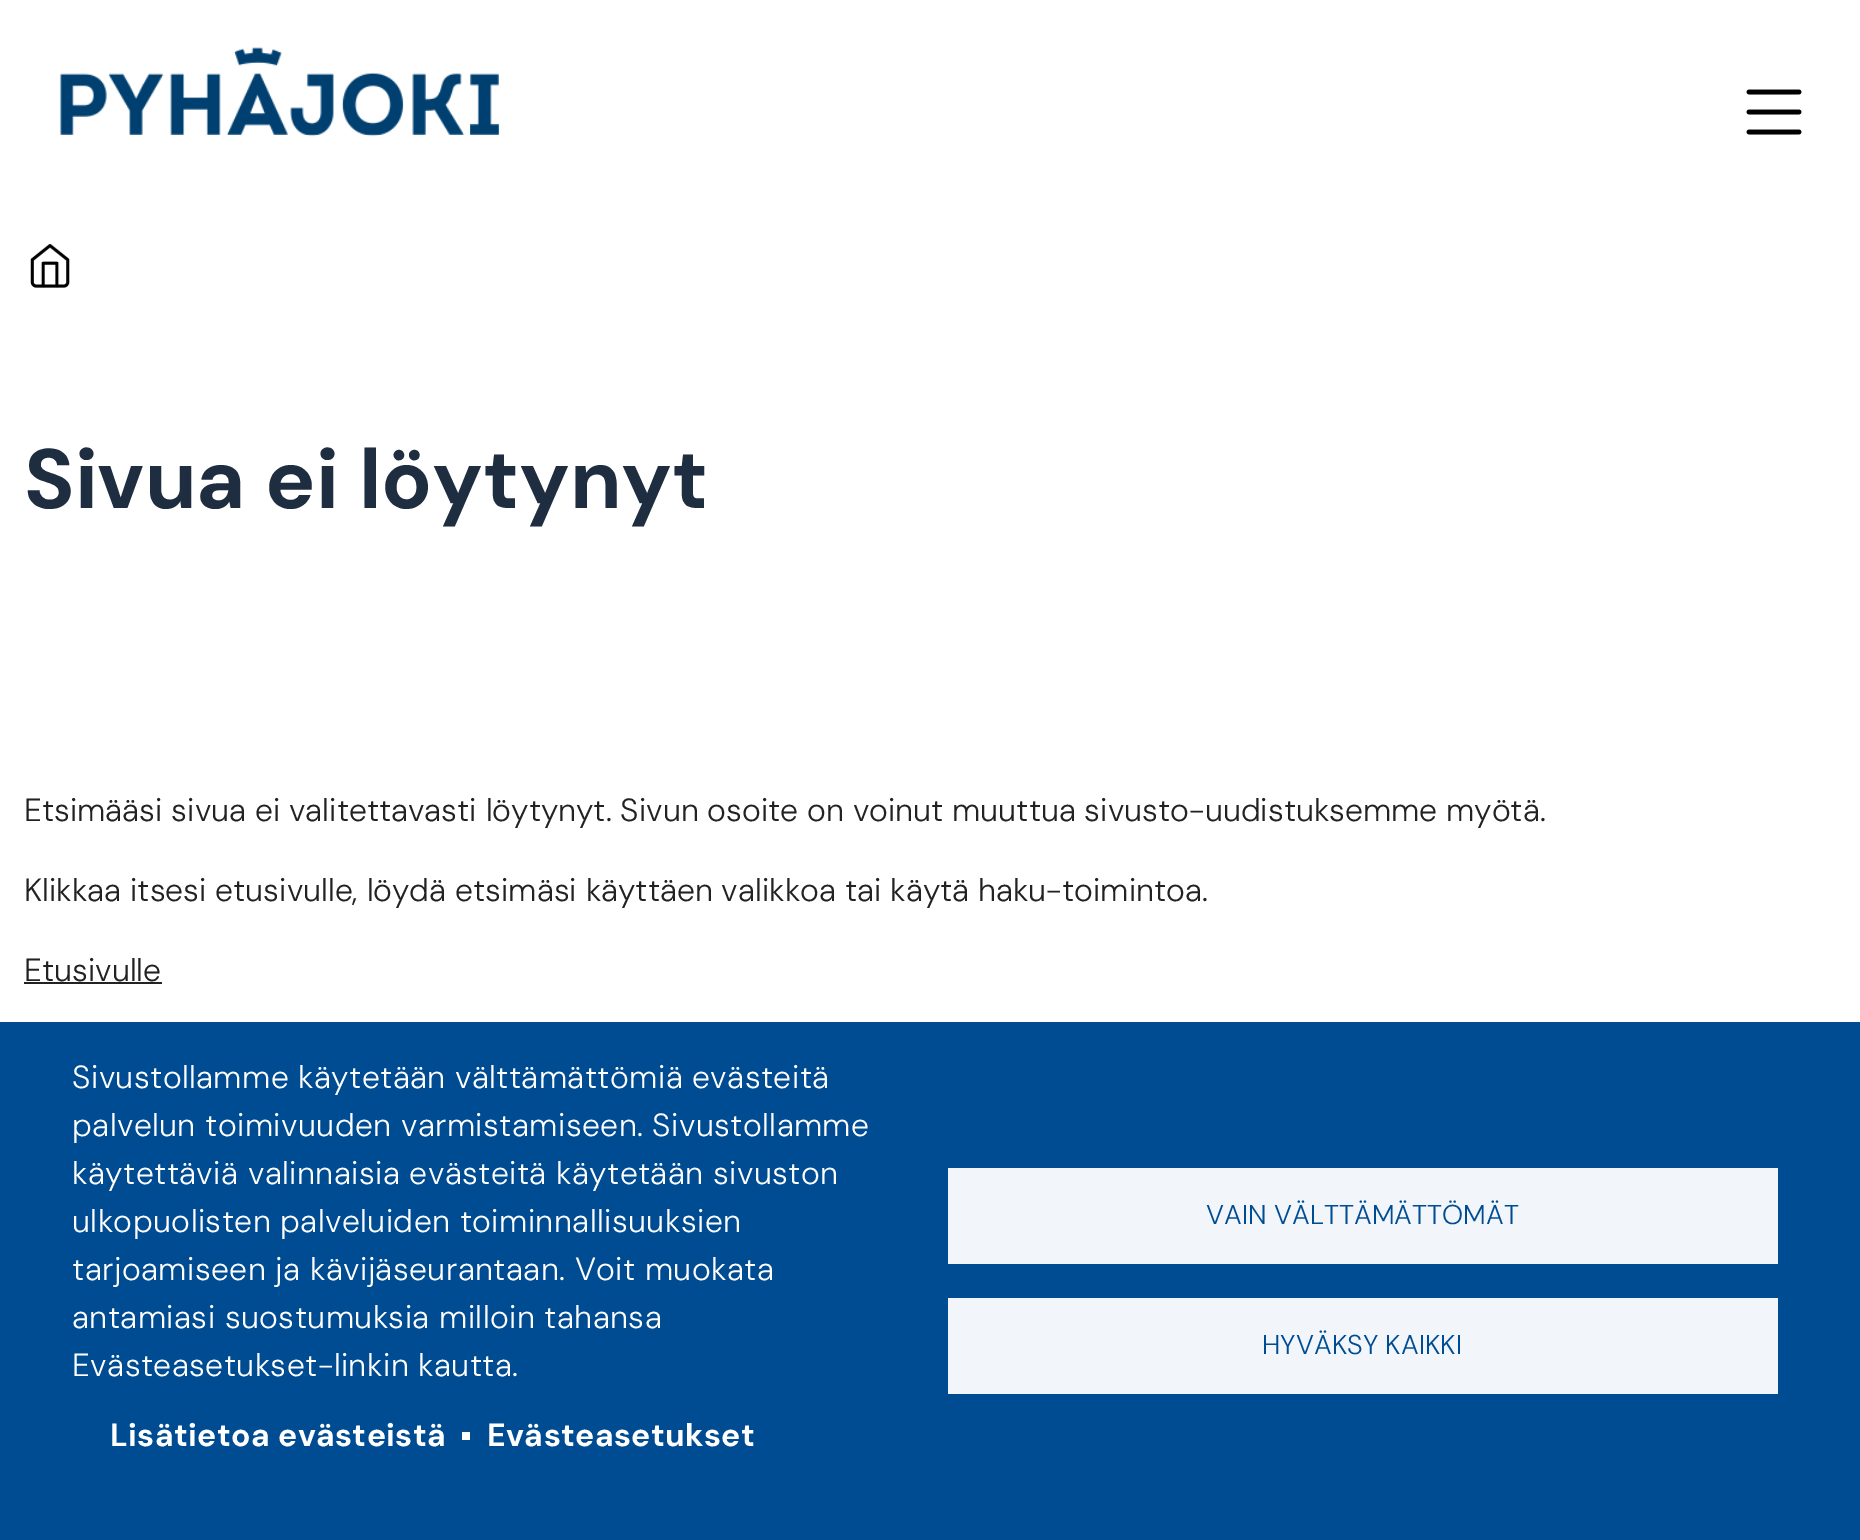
%!PS
<< /PageSize [1860 1540] >> setpagedevice
/rgb { dup -16 bitshift 255 div exch dup -8 bitshift 255 and 255 div exch 255 and 255 div setrgbcolor } def
/font { [ exch dup neg 0 0 3 -1 roll 0 0 ] selectfont } def
/text { moveto show } def
/picture { 5 dict begin { /h /w /y /x /name } { exch def } forall
  gsave x y translate w h scale
  w h 8 [w 0 0 h 0 0] name (r) file false 3 colorimage grestore end } def
0 1540 translate 1 -1 scale
4 setmiterlimit
/s1 { /DMSans-Bold 84 font 16#1F2D40 rgb } def
/s2 { /DMSans-Light 32 font 16#222222 rgb } def
/s3 { /DMSans-Light 27.25 font 16#004C93 rgb } def
16#FFFFFF rgb
0 0 1860 1540 rectfill
(pic1.raw) 59 47 441 90 picture
(pic2.raw) 1746 89 56 46 picture
(pic3.raw) 30 244 40 44 picture
s1
(Sivua ei löytynyt) 24 508 text
s2
(Etsimääsi sivua ei valitettavasti löytynyt. Sivun osoite on voinut muuttua sivusto-uudistuksemme myötä.) 24 821 text
(Klikkaa itsesi etusivulle, löydä etsimäsi käyttäen valikkoa tai käytä haku-toimintoa.) 24 901 text
(Etusivulle) 24 981 text
24 982 138 2 rectfill
16#004C93 rgb
0 1022 1860 518 rectfill
16#FFFFFF rgb
72 1088 moveto 0.4 0 (Sivustollamme käytetään välttämättömiä evästeitä) ashow
72 1136 moveto 0.4 0 (palvelun toimivuuden varmistamiseen. Sivustollamme) ashow
72 1184 moveto 0.4 0 (käytettäviä valinnaisia evästeitä käytetään sivuston) ashow
72 1232 moveto 0.4 0 (ulkopuolisten palveluiden toiminnallisuuksien) ashow
72 1280 moveto 0.4 0 (tarjoamiseen ja kävijäseurantaan. Voit muokata) ashow
72 1328 moveto 0.4 0 (antamiasi suostumuksia milloin tahansa) ashow
72 1376 moveto 0.4 0 (Evästeasetukset-linkin kautta.) ashow
/DMSans-Bold 32 font
110 1446 moveto 0.4 0 (Lisätietoa evästeistä) ashow
462 1432 8 8 rectfill
487 1446 moveto 0.4 0 (Evästeasetukset) ashow
16#F2F6FA rgb
948 1168 830 96 rectfill
s3
(VAIN VÄLTTÄMÄTTÖMÄT) 1206 1224 text
16#F2F6FA rgb
948 1298 830 96 rectfill
s3
(HYVÄKSY KAIKKI) 1262 1354 text
showpage
